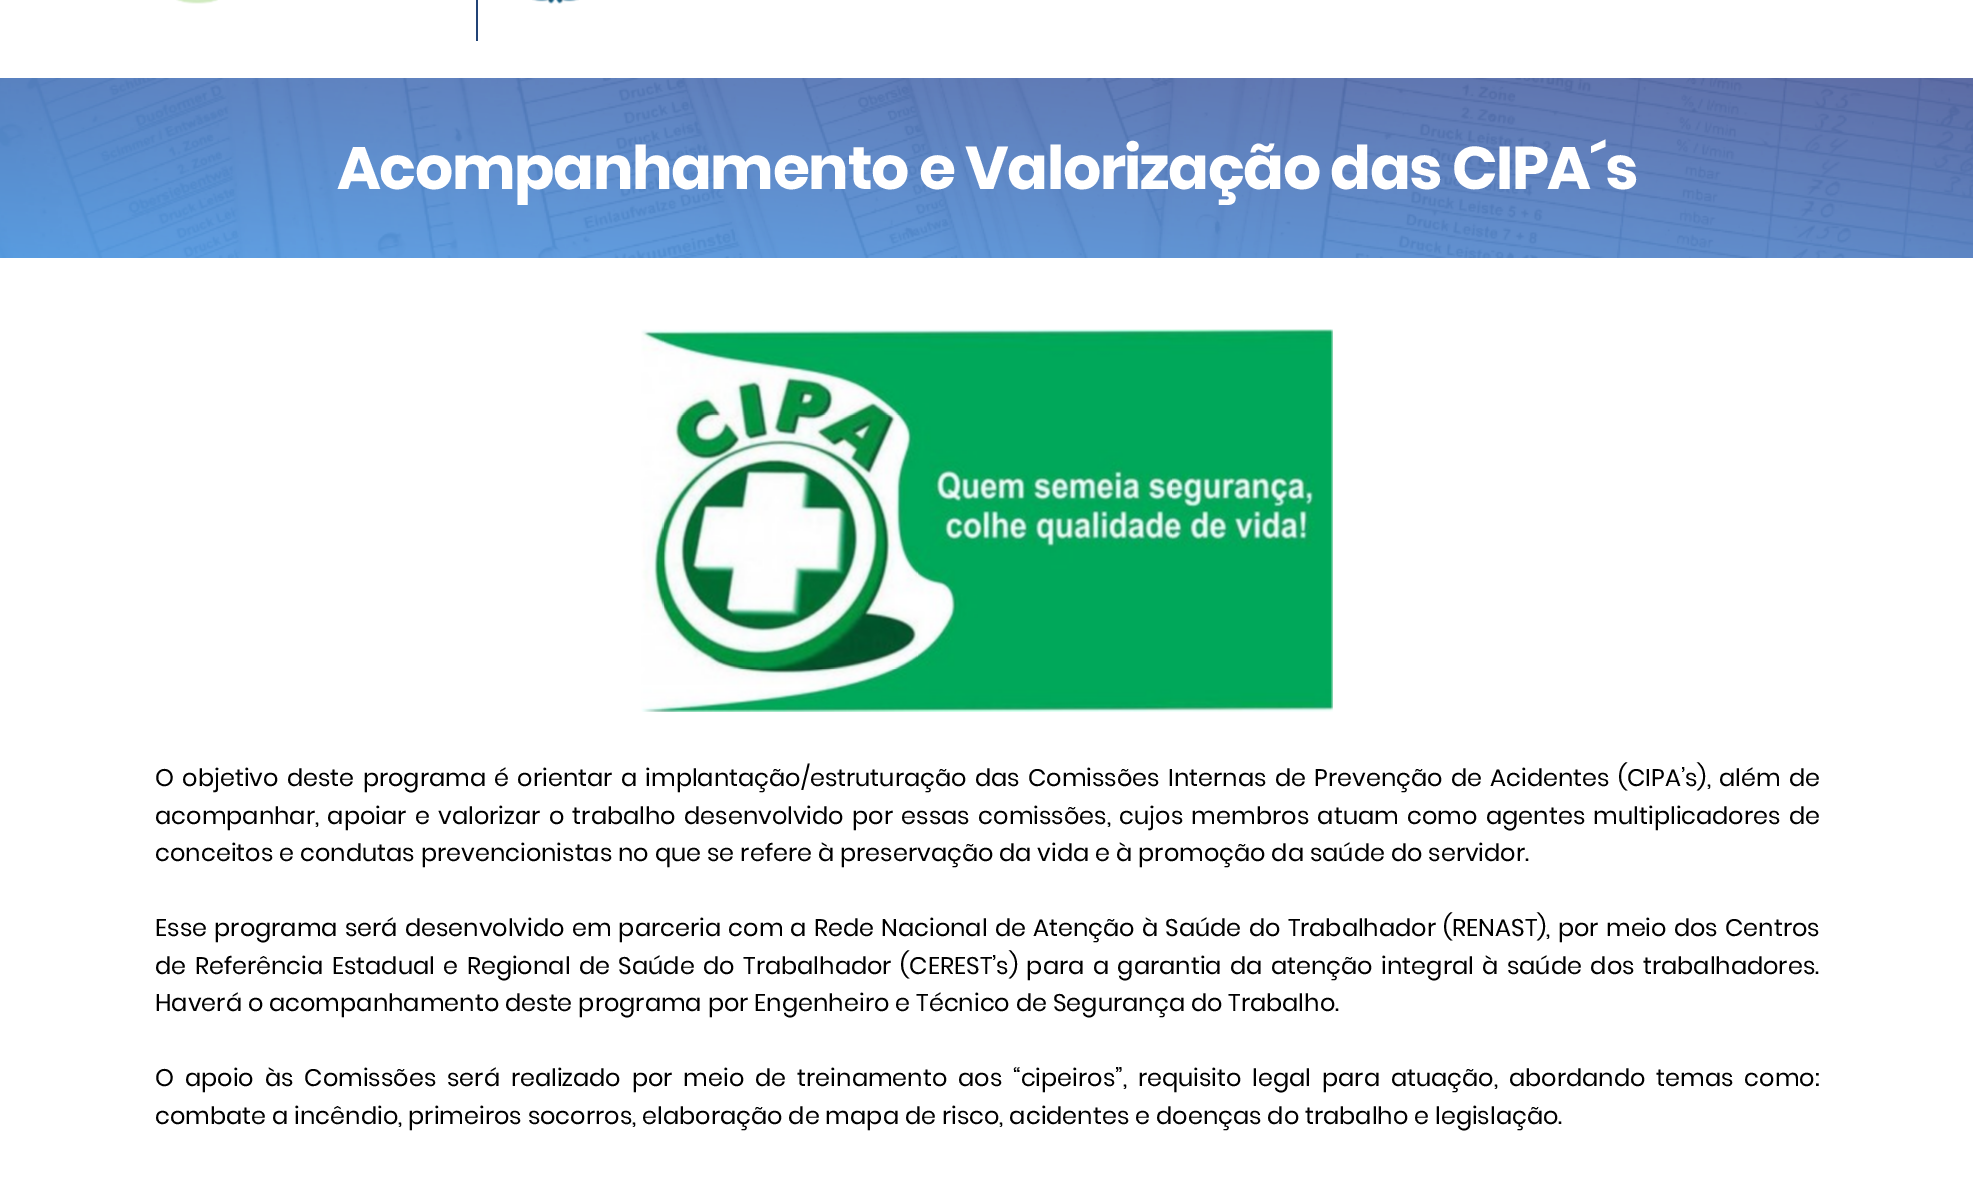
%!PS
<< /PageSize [1973 1179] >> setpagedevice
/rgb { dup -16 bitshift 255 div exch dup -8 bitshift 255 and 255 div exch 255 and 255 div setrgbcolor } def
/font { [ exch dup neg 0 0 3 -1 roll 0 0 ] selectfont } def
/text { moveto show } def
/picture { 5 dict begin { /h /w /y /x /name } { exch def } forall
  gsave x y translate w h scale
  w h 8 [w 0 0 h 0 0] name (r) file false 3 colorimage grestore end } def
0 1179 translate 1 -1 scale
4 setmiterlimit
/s1 { /Poppins-Regular 24 font 16#000000 rgb } def
16#FFFFFF rgb
0 0 1973 1179 rectfill
(pic1.raw) 176 0 42 4 picture
16#214376 rgb
476 0 2 41 rectfill
(pic2.raw) 532 0 47 4 picture
gsave 0 78 moveto 1973 78 lineto 1973 258 lineto 0 258 lineto closepath clip newpath
<< /ShadingType 2 /ColorSpace /DeviceRGB /Coords [971 347 1003 -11] /Extend [true true] /Function << /FunctionType 2 /Domain [0 1] /C0 [0.02 0.459 0.902] /C1 [0.008 0.106 0.475] /N 1 >> >> shfill grestore
(pic3.raw) 0 78 1973 180 picture
/Poppins-Bold 60 font
16#FFFFFF rgb
337 189 moveto -1.35 0 (Acompanhamento e Valorização das CIPA´s) ashow
(pic4.raw) 641 329 692 383 picture
/Poppins-Regular 24 font
16#000000 rgb
155 786 moveto 2.4 0 32 (O objetivo deste programa) widthshow
494 786 moveto 2.4 0 32 (é orientar a implantação/estruturação das Comissões Internas de Prevenção de Acidentes \(CIPA’s\), além de) widthshow
155 824 moveto 2.5 0 32 (acompanhar, apoiar e valorizar o trabalho desenvolvido por essas comissões, cujos membros atuam como agentes multiplicadores de) widthshow
(conceitos e condutas prevencionistas no que se refere à preservação da vida e à promoção da saúde do servidor.) 155 861 text
155 936 moveto 1.3 0 32 (Esse programa será desenvolvido em parceria com a Rede Nacional de Atenção à Saúde do Trabalhador \(RENAST\), por meio dos Centros) widthshow
155 974 moveto 2.6 0 32 (de Referência Estadual e Regional de Saúde do Trabalhador \(CEREST’s\) para a garantia da atenção integral à saúde dos trabalhadores.) widthshow
(Haverá o acompanhamento deste programa por Engenheiro e Técnico de Segurança do Trabalho.) 155 1011 text
155 1086 moveto 5 0 32 (O apoio às Comissões será realizado por meio de treinamento aos “cipeiros”, requisito legal para atuação, abordando temas como:) widthshow
(combate a incêndio, primeiros socorros, elaboração de mapa de risco, acidentes e doenças do trabalho e legislação.) 155 1124 text
showpage
